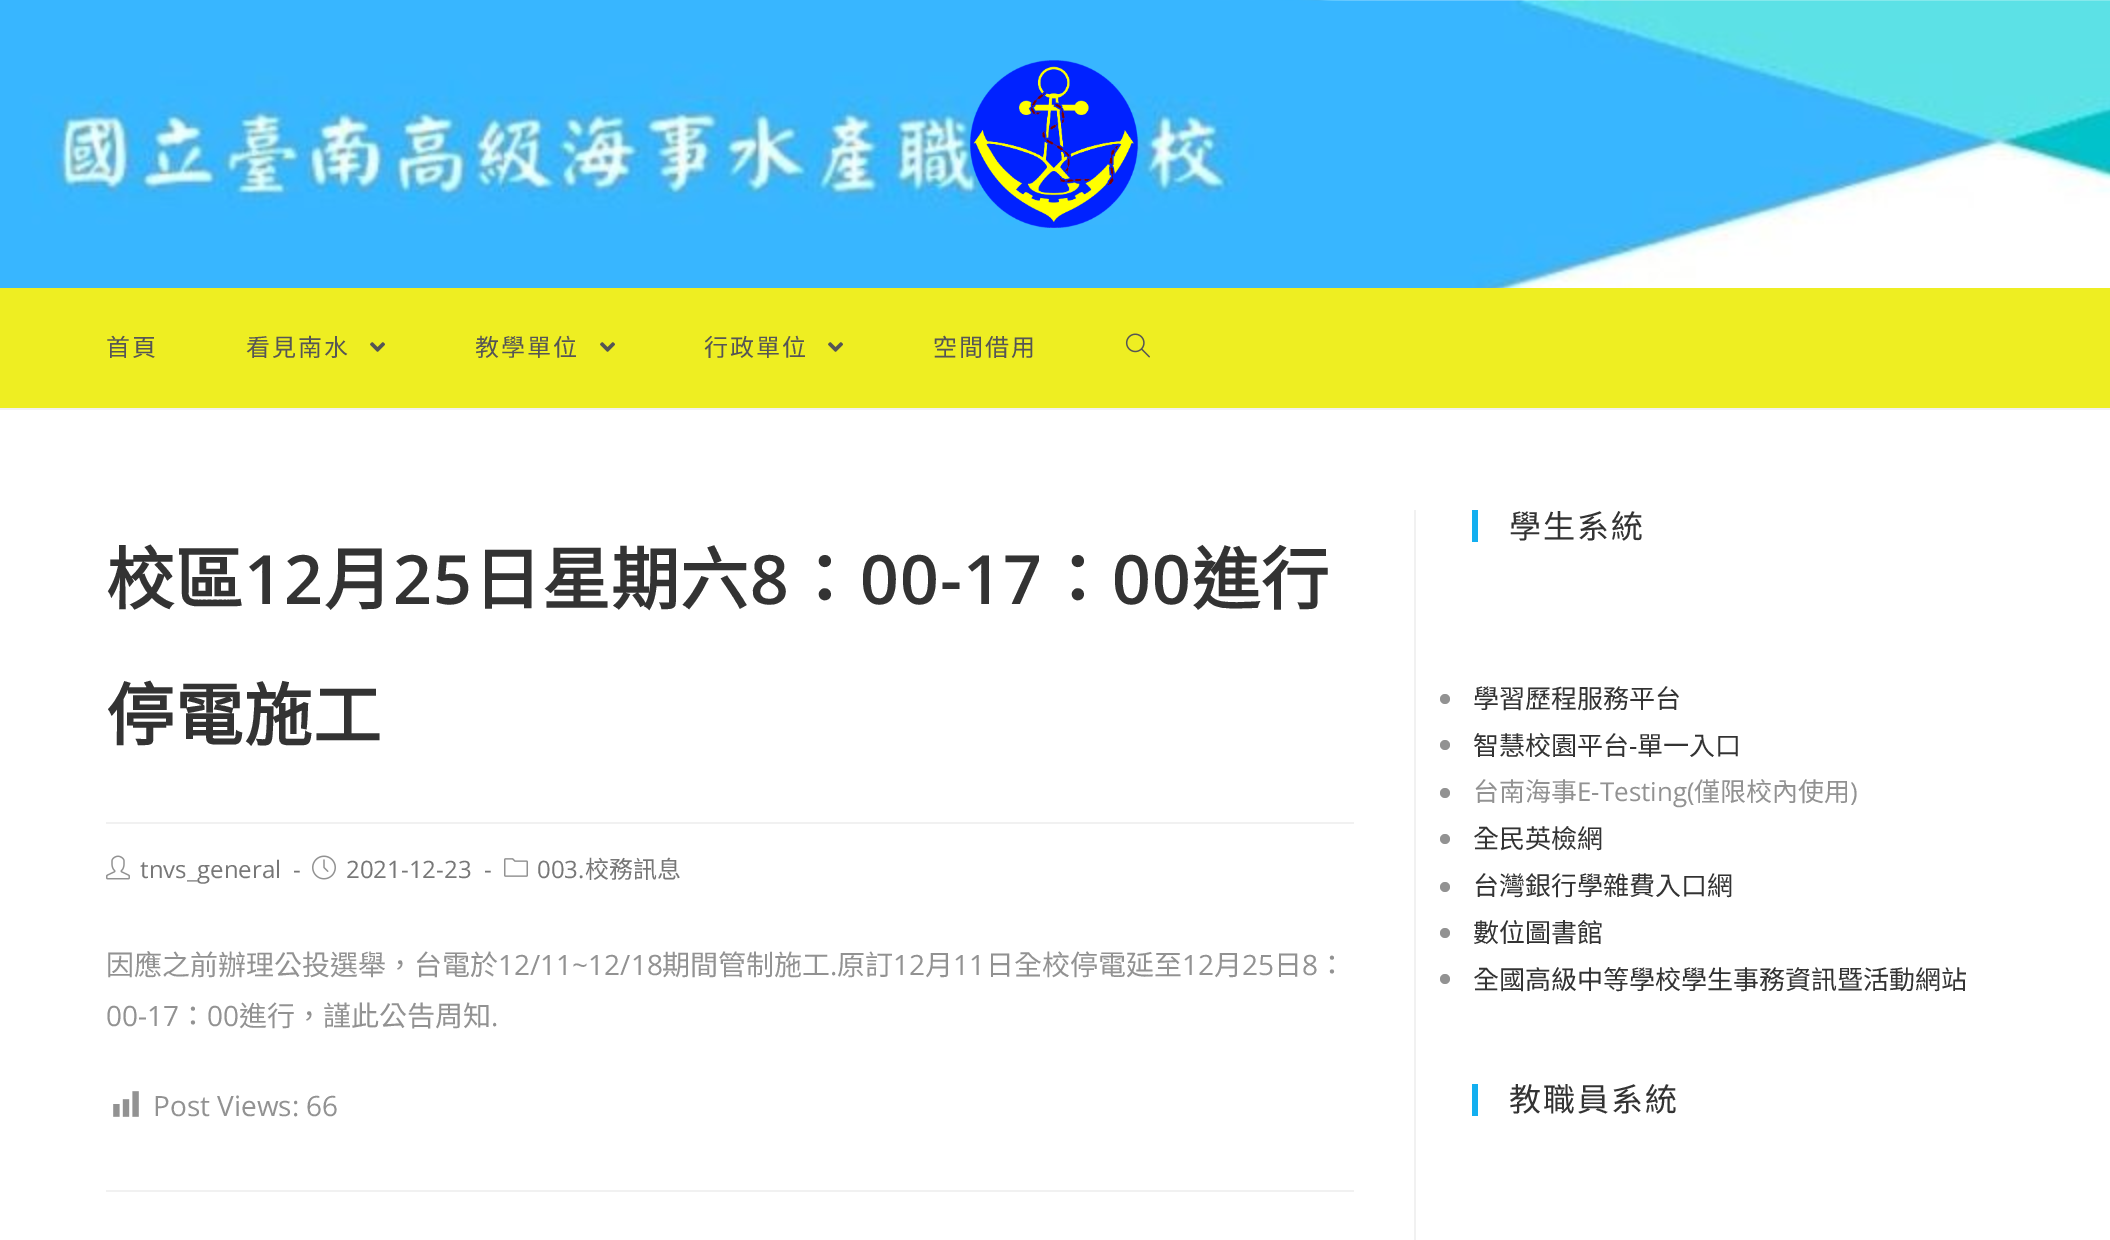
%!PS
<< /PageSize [2110 1240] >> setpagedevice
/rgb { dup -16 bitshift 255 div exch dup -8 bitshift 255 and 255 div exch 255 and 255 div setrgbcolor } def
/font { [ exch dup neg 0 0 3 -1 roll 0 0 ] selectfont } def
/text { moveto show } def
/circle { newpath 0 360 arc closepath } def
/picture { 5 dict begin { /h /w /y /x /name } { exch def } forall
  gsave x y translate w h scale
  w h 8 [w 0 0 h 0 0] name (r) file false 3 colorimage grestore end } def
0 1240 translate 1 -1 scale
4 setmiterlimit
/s1 { /OpenSans-Regular 24 font 16#777777 rgb } def
/s2 { /NotoSansCJKTC-Regular 24 font 16#777777 rgb } def
/s3 { /NotoSansCJKTC-Regular 28 font 16#929292 rgb } def
/s4 { /OpenSans-Regular 28 font 16#929292 rgb } def
/s5 { /NotoSansCJKTC-Regular 26 font 16#333333 rgb } def
/s6 { /OpenSans-Regular 26 font 16#333333 rgb } def
/s7 { /NotoSansCJKTC-Regular 26 font 16#929292 rgb } def
/s8 { /OpenSans-Regular 26 font 16#929292 rgb } def
16#FFFFFF rgb
0 0 2110 1240 rectfill
(pic1.raw) 0 0 2110 288 picture
16#F1F1F1 rgb
0 408 2110 2 rectfill
(pic2.raw) 969 60 170 168 picture
16#EEEE22 rgb
0 288 2110 120 rectfill
/NotoSansCJKTC-Regular 24 font
16#555555 rgb
106 356 moveto 2 0 (首頁) ashow
246 356 moveto 2 0 (看見南水) ashow
(pic3.raw) 370 342 15 10 picture
475 356 moveto 2 0 (教學單位) ashow
(pic3.raw) 600 342 15 10 picture
704 356 moveto 2 0 (行政單位) ashow
(pic3.raw) 828 342 15 10 picture
933 356 moveto 2 0 (空間借用) ashow
(pic4.raw) 1125 333 25 25 picture
16#F1F1F1 rgb
1414 510 2 730 rectfill
106 822 1248 2 rectfill
/NotoSansCJKTC-Bold 68 font
16#333333 rgb
106 604 moveto 1 0 (校區) ashow
/OpenSans-SemiBold 68 font
244 604 moveto 1 0 (12) ashow
/NotoSansCJKTC-Bold 68 font
324 604 moveto 1 0 (月) ashow
/OpenSans-SemiBold 68 font
393 604 moveto 1 0 (25) ashow
/NotoSansCJKTC-Bold 68 font
473 604 moveto 1 0 (日星期六) ashow
/OpenSans-SemiBold 68 font
750 604 moveto 1 0 (8) ashow
/NotoSansCJKTC-Bold 68 font
790 604 moveto 1 0 (：) ashow
/OpenSans-SemiBold 68 font
860 604 moveto 1 0 (00-17) ashow
/NotoSansCJKTC-Bold 68 font
1043 604 moveto 1 0 (：) ashow
/OpenSans-SemiBold 68 font
1112 604 moveto 1 0 (00) ashow
/NotoSansCJKTC-Bold 68 font
1192 604 moveto 1 0 (進行) ashow
106 740 moveto 1 0 (停電施工) ashow
(pic5.raw) 106 855 24 25 picture
s1
(tnvs_general) 140 878 text
(-) 293 878 text
(pic6.raw) 312 855 24 25 picture
(2021-12-23) 346 878 text
(-) 484 878 text
(pic7.raw) 504 858 24 19 picture
(003.) 537 878 text
s2
(校務訊息) 585 878 text
s3
(因應之前辦理公投選舉，台電於) 106 975 text
s4
(12/11~12/18) 498 975 text
s3
(期間管制施工) 662 975 text
s4
(.) 830 975 text
s3
(原訂) 837 975 text
s4
(12) 893 975 text
s3
(月) 925 975 text
s4
(11) 953 975 text
s3
(日全校停電延至) 986 975 text
s4
(12) 1182 975 text
s3
(月) 1214 975 text
s4
(25) 1242 975 text
s3
(日) 1274 975 text
s4
(8) 1302 975 text
s3
(：) 1318 975 text
s4
(00-17) 106 1026 text
s3
(：) 179 1026 text
s4
(00) 207 1026 text
s3
(進行，謹此公告周知) 239 1026 text
s4
(.) 491 1026 text
(pic8.raw) 113 1091 26 26 picture
(Post Views: 66) 153 1116 text
16#F1F1F1 rgb
106 1190 1248 2 rectfill
16#13AFF0 rgb
1472 510 6 32 rectfill
/NotoSansCJKTC-Regular 32 font
16#333333 rgb
1509 538 moveto 2 0 (學生系統) ashow
16#929292 rgb
1445 699 5 circle fill
s5
(學習歷程服務平台) 1473 708 text
16#929292 rgb
1445 745 5 circle fill
s5
(智慧校園平台) 1473 755 text
s6
(-) 1629 755 text
s5
(單一入口) 1637 755 text
16#929292 rgb
1445 793 5 circle fill
(台南海事) 1473 801 text
s8
(E-Testing\() 1577 801 text
s7
(僅限校內使用) 1694 801 text
s8
(\)) 1850 801 text
1445 839 5 circle fill
s5
(全民英檢網) 1473 848 text
16#929292 rgb
1445 887 5 circle fill
s5
(台灣銀行學雜費入口網) 1473 895 text
16#929292 rgb
1445 933 5 circle fill
s5
(數位圖書館) 1473 942 text
16#929292 rgb
1445 979 5 circle fill
s5
(全國高級中等學校學生事務資訊暨活動網站) 1473 989 text
16#13AFF0 rgb
1472 1084 6 32 rectfill
/NotoSansCJKTC-Regular 32 font
16#333333 rgb
1509 1111 moveto 2 0 (教職員系統) ashow
showpage
